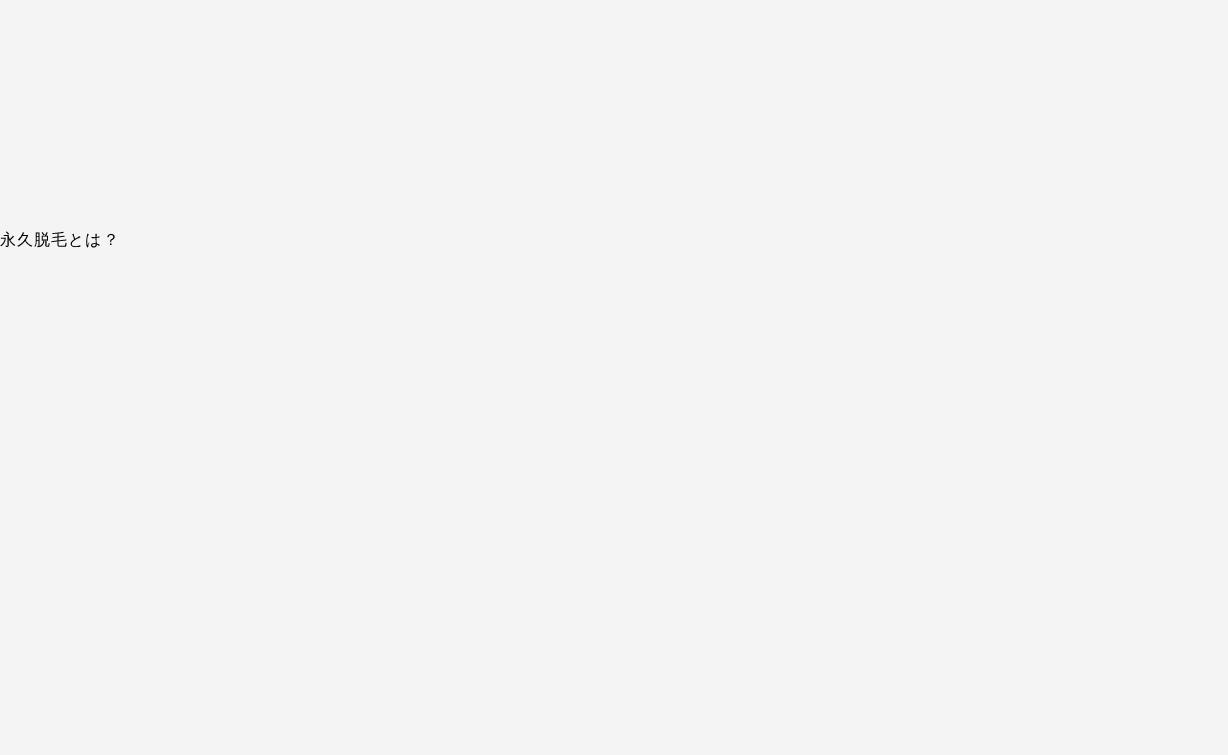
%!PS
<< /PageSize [1228 755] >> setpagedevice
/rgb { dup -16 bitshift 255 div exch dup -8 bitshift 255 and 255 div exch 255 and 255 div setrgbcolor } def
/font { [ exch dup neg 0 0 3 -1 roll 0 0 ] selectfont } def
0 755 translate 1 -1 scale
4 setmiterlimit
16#F4F4F4 rgb
0 0 1228 755 rectfill
/WenQuanYiZenHei-Medium 16 font
16#000000 rgb
0 245 moveto 1 0 (永久脱毛とは？) ashow
showpage
